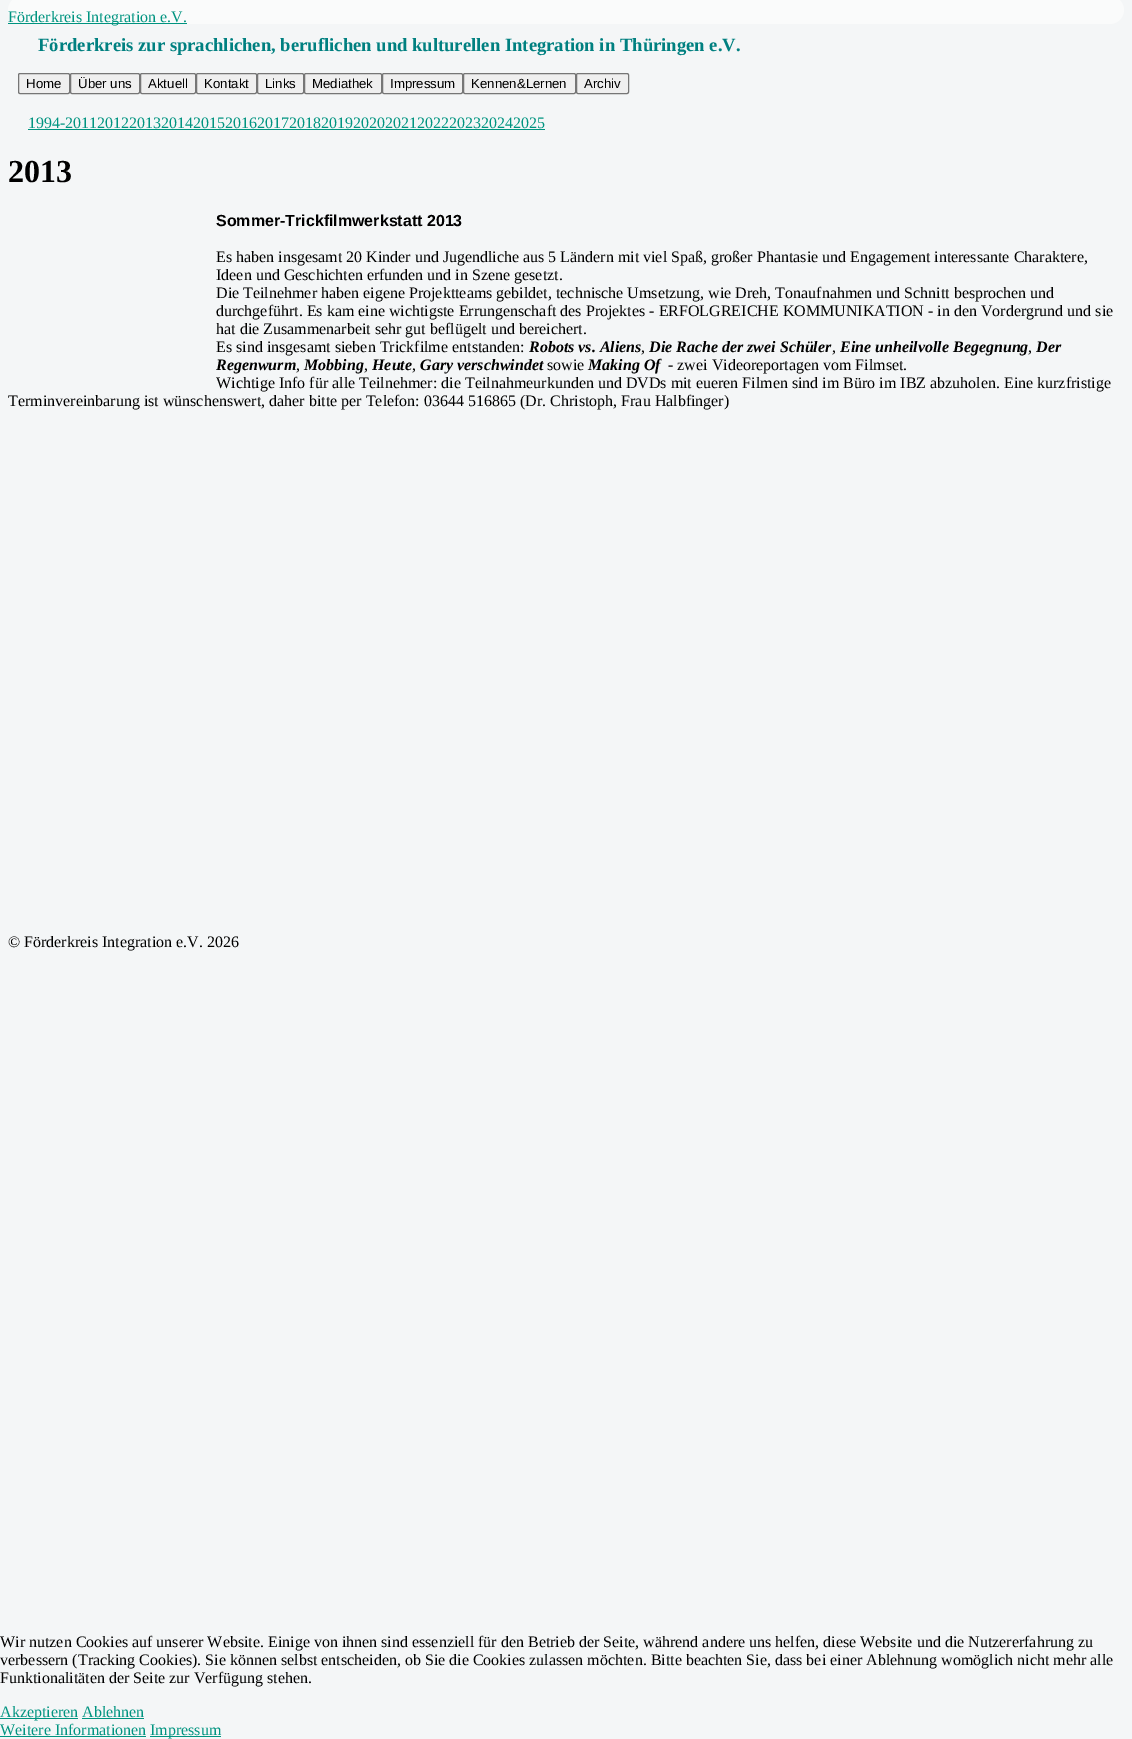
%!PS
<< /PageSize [1132 1739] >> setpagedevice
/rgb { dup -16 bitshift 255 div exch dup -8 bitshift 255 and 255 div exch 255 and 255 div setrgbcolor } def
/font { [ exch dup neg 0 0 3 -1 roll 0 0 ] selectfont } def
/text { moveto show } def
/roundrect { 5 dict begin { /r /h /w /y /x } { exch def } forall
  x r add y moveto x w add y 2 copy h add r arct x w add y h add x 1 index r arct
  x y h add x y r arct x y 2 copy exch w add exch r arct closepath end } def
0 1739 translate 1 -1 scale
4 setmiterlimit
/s1 { /LiberationSerif-Regular 16 font 16#009480 rgb } def
/s2 { /LiberationSerif-Bold 18.65 font 16#008080 rgb } def
/s3 { /LiberationSans-Regular 13.25 font 16#000000 rgb } def
/s4 { /LiberationSerif-Bold 32 font 16#000000 rgb } def
/s5 { /LiberationSans-Bold 16 font 16#000000 rgb } def
/s6 { /LiberationSerif-Regular 16 font 16#000000 rgb } def
/s7 { /LiberationSerif-BoldItalic 16 font 16#000000 rgb } def
16#F4F6F7 rgb
0 0 1132 1739 rectfill
16#FAFBFB rgb
8 -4 1116 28 14 roundrect fill
16#009480 rgb
8 23 179 1 rectfill
s1
(Förderkreis Integration e.V.) 8 22 text
s2
(Förderkreis zur sprachlichen, beruflichen und kulturellen Integration in Thüringen e.V.) 38 51 text
16#EFEFEF rgb
18.5 73.5 51 20 1.5 roundrect gsave fill grestore
16#767676 rgb
stroke
s3
(Home) 26 88 text
16#EFEFEF rgb
70.5 73.5 69 20 1.5 roundrect gsave fill grestore
16#767676 rgb
stroke
s3
(Über uns) 78 88 text
16#EFEFEF rgb
140.5 73.5 55 20 1.5 roundrect gsave fill grestore
16#767676 rgb
stroke
s3
(Aktuell) 148 88 text
16#EFEFEF rgb
196.5 73.5 60 20 1.5 roundrect gsave fill grestore
16#767676 rgb
stroke
s3
(Kontakt) 204 88 text
16#EFEFEF rgb
257.5 73.5 46 20 1.5 roundrect gsave fill grestore
16#767676 rgb
stroke
s3
(Links) 265 88 text
16#EFEFEF rgb
304.5 73.5 77 20 1.5 roundrect gsave fill grestore
16#767676 rgb
stroke
s3
(Mediathek) 312 88 text
16#EFEFEF rgb
382.5 73.5 80 20 1.5 roundrect gsave fill grestore
16#767676 rgb
stroke
s3
(Impressum) 390 88 text
16#EFEFEF rgb
463.5 73.5 112 20 1.5 roundrect gsave fill grestore
16#767676 rgb
stroke
s3
(Kennen&Lernen) 471 88 text
16#EFEFEF rgb
576.5 73.5 52 20 1.5 roundrect gsave fill grestore
16#767676 rgb
stroke
s3
(Archiv) 584 88 text
s1
(1994-201120122013201420152016201720182019202020212022202320242025) 28 128 text
28 129 517 1 rectfill
s4
(2013) 8 182 text
s5
(Sommer-Trickfilmwerkstatt 2013) 216 226 text
s6
(Es haben insgesamt 20 Kinder und Jugendliche aus 5 Ländern mit viel Spaß, großer Phantasie und Engagement interessante Charaktere,) 216 262 text
(Ideen und Geschichten erfunden und in Szene gesetzt.) 216 280 text
(Die Teilnehmer haben eigene Projektteams gebildet, technische Umsetzung, wie Dreh, Tonaufnahmen und Schnitt besprochen und) 216 298 text
(durchgeführt. Es kam eine wichtigste Errungenschaft des Projektes - ERFOLGREICHE KOMMUNIKATION - in den Vordergrund und sie) 216 316 text
(hat die Zusammenarbeit sehr gut beflügelt und bereichert.) 216 334 text
(Es sind insgesamt sieben Trickfilme entstanden:) 216 352 text
s7
(Robots vs. Aliens) 529 352 text
s6
(,) 641 352 text
s7
(Die Rache der zwei Schüler) 649 352 text
s6
(,) 832 352 text
s7
(Eine unheilvolle Begegnung) 840 352 text
s6
(,) 1028 352 text
s7
(Der) 1036 352 text
(Regenwurm) 216 370 text
s6
(,) 296 370 text
s7
(Mobbing) 304 370 text
s6
(,) 364 370 text
s7
(Heute) 372 370 text
s6
(,) 412 370 text
s7
(Gary verschwindet) 420 370 text
s6
(sowie) 547 370 text
s7
(Making Of) 588 370 text
s6
(- zwei Videoreportagen vom Filmset.) 668 370 text
(Wichtige Info für alle Teilnehmer: die Teilnahmeurkunden und DVDs mit eueren Filmen sind im Büro im IBZ abzuholen. Eine kurzfristige) 216 388 text
(Terminvereinbarung ist wünschenswert, daher bitte per Telefon: 03644 516865 \(Dr. Christoph, Frau Halbfinger\)) 8 406 text
(© Förderkreis Integration e.V. 2026) 8 947 text
(Wir nutzen Cookies auf unserer Website. Einige von ihnen sind essenziell für den Betrieb der Seite, während andere uns helfen, diese Website und die Nutzererfahrung zu) 0 1647 text
(verbessern \(Tracking Cookies\). Sie können selbst entscheiden, ob Sie die Cookies zulassen möchten. Bitte beachten Sie, dass bei einer Ablehnung womöglich nicht mehr alle) 0 1665 text
(Funktionalitäten der Seite zur Verfügung stehen.) 0 1683 text
16#009480 rgb
0 1718 78 1 rectfill
(Akzeptieren Ablehnen) 0 1717 text
82 1718 62 1 rectfill
(Weitere Informationen) 0 1735 text
0 1736 146 1 rectfill
150 1736 71 1 rectfill
(Impressum) 150 1735 text
showpage
